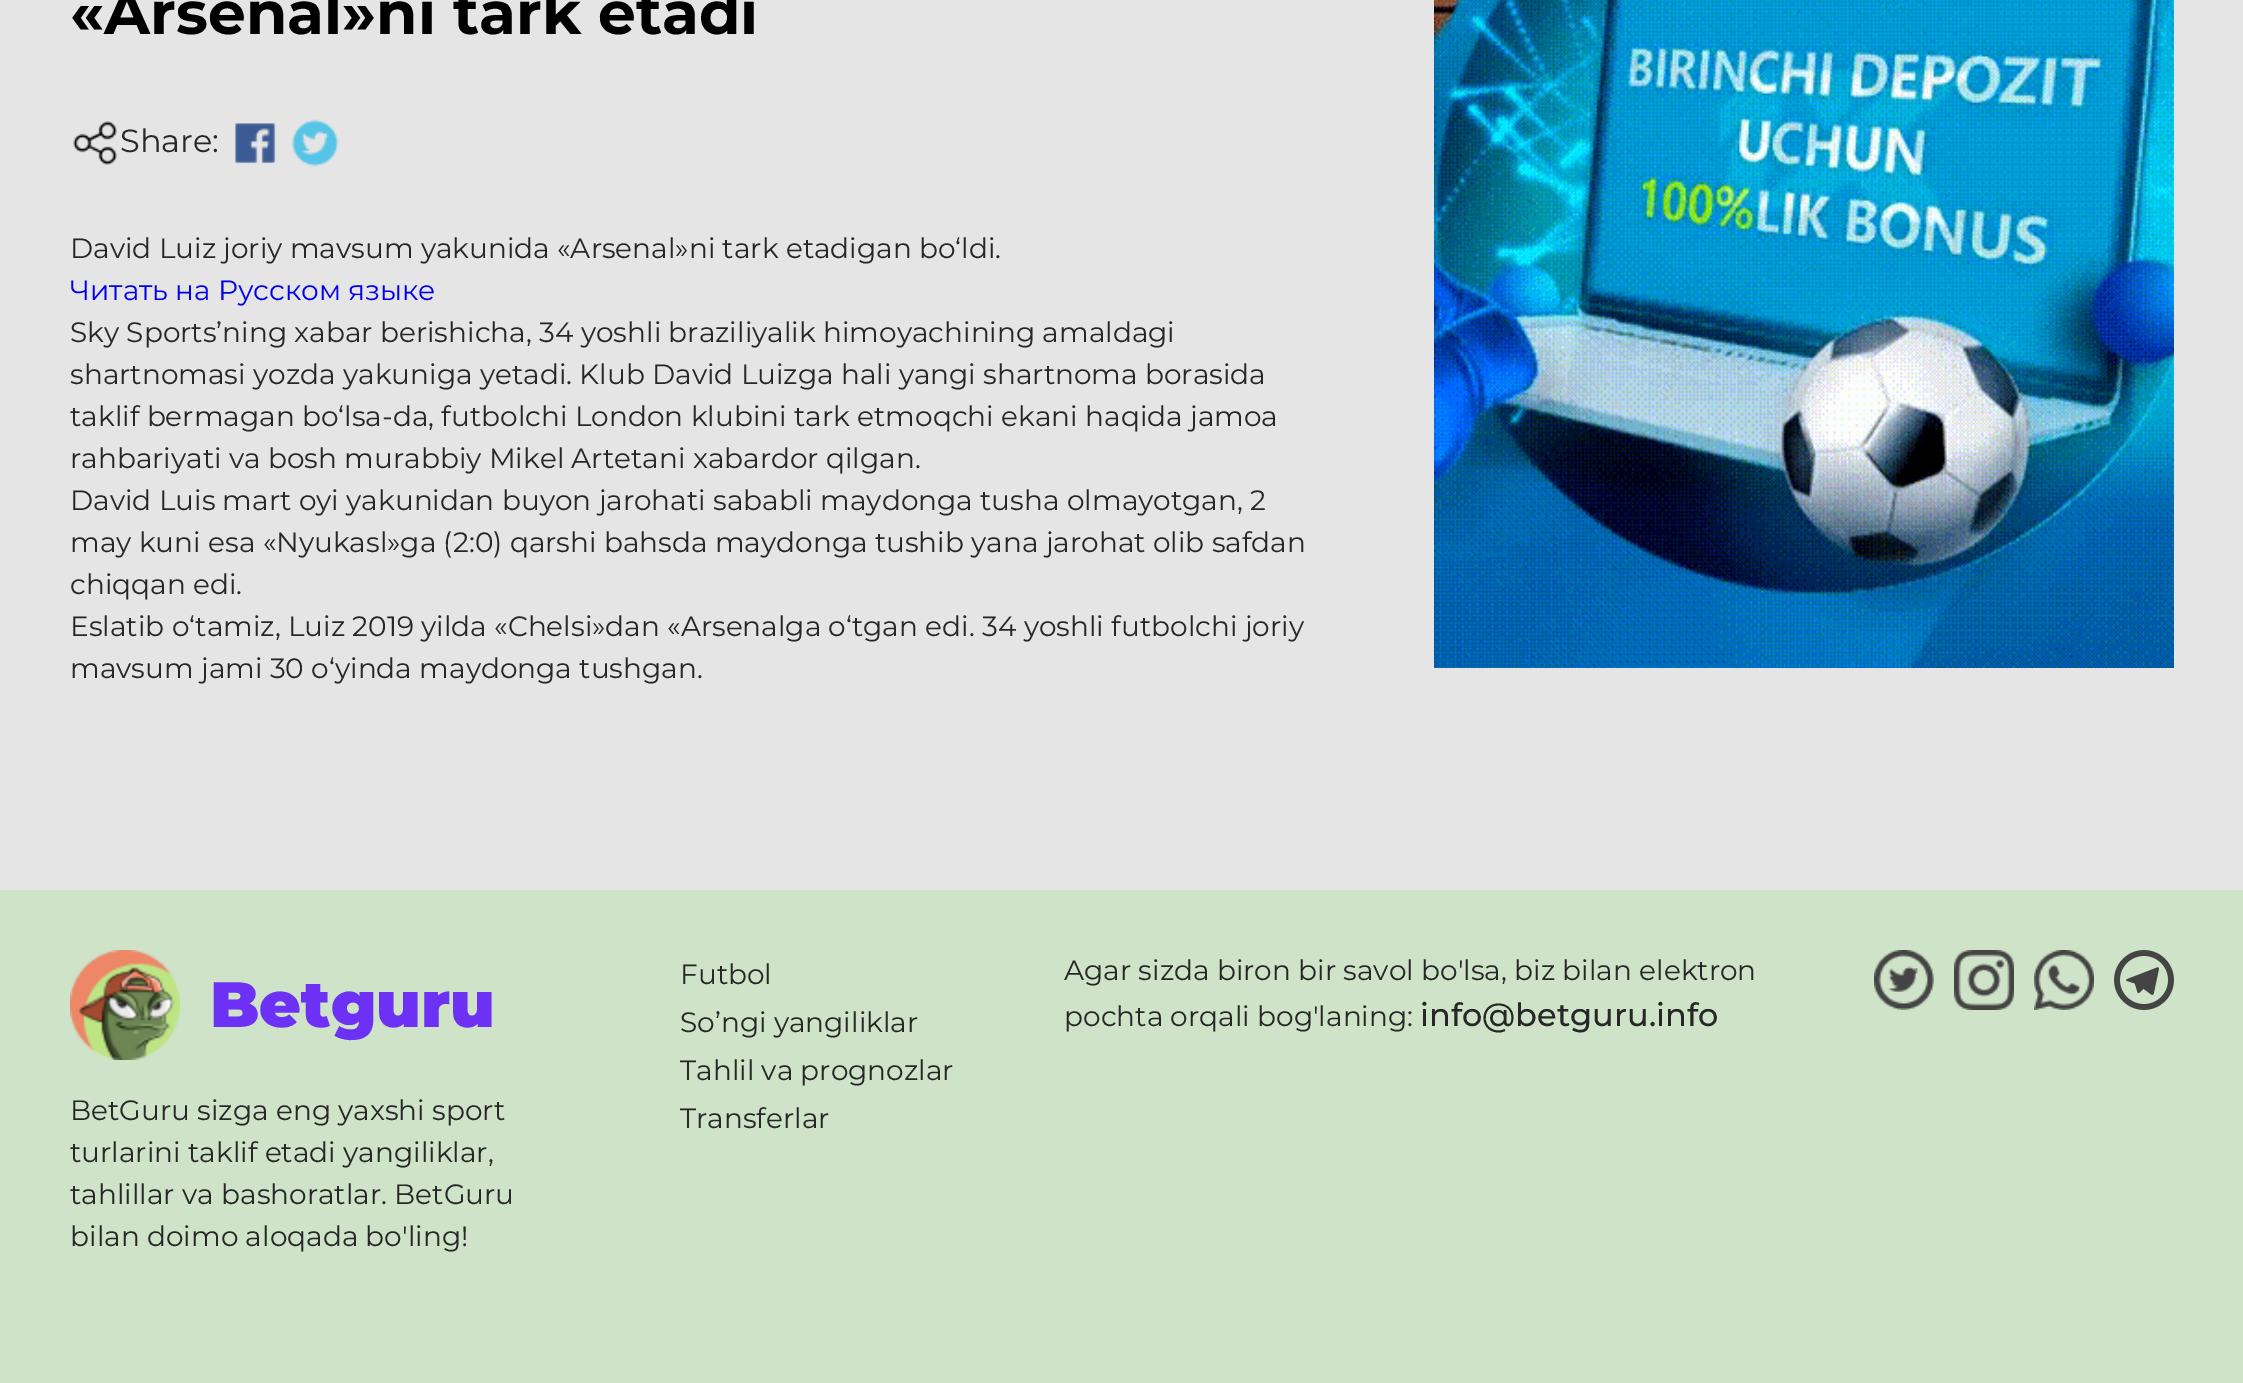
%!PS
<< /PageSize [2243 1383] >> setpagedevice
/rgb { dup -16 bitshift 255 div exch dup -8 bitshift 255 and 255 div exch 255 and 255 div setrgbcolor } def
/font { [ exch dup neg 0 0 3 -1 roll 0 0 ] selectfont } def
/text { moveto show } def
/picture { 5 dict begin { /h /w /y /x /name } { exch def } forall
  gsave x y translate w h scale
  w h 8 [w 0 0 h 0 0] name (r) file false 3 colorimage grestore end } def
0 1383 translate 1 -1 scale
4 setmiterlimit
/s1 { /Montserrat-Bold 60 font 16#000000 rgb } def
/s2 { /Montserrat-Regular 32 font 16#272727 rgb } def
/s3 { /Montserrat-Regular 28 font 16#272727 rgb } def
/s4 { /Montserrat-Regular 28 font 16#0000EE rgb } def
/s5 { /Montserrat-Black 64 font 16#6D31F5 rgb } def
/s6 { /Montserrat-Medium 32 font 16#272727 rgb } def
16#E5E5E5 rgb
0 0 2243 1383 rectfill
s1
(«Arsenal»ni tark etadi) 70 34 text
(pic1.raw) 73 121 44 44 picture
s2
(Share:) 120 152 text
(pic2.raw) 235 123 41 41 picture
(pic3.raw) 291 119 48 48 picture
s3
(David Luiz joriy mavsum yakunida «Arsenal»ni tark etadigan bo‘ldi.) 70 258 text
s4
(Читать на Русском языке) 70 300 text
s3
(Sky Sports’ning xabar berishicha, 34 yoshli braziliyalik himoyachining amaldagi) 70 342 text
(shartnomasi yozda yakuniga yetadi. Klub David Luizga hali yangi shartnoma borasida) 70 384 text
(taklif bermagan bo‘lsa-da, futbolchi London klubini tark etmoqchi ekani haqida jamoa) 70 426 text
(rahbariyati va bosh murabbiy Mikel Artetani xabardor qilgan.) 70 468 text
(David Luis mart oyi yakunidan buyon jarohati sababli maydonga tusha olmayotgan, 2) 70 510 text
(may kuni esa «Nyukasl»ga \(2:0\) qarshi bahsda maydonga tushib yana jarohat olib safdan) 70 552 text
(chiqqan edi.) 70 594 text
(Eslatib o‘tamiz, Luiz 2019 yilda «Chelsi»dan «Arsenalga o‘tgan edi. 34 yoshli futbolchi joriy) 70 636 text
(mavsum jami 30 o‘yinda maydonga tushgan.) 70 678 text
(pic4.raw) 1434 0 740 668 picture
16#CEE3C7 rgb
0 890 2243 493 rectfill
(pic5.raw) 70 950 110 110 picture
s5
(Betguru) 210 1027 text
s3
(BetGuru sizga eng yaxshi sport) 70 1120 text
(turlarini taklif etadi yangiliklar,) 70 1162 text
(tahlillar va bashoratlar. BetGuru) 70 1204 text
(bilan doimo aloqada bo'ling!) 70 1246 text
(Futbol) 680 984 text
(So’ngi yangiliklar) 680 1032 text
(Tahlil va prognozlar) 680 1080 text
(Transferlar) 680 1128 text
(Agar sizda biron bir savol bo'lsa, biz bilan elektron) 1064 980 text
(pochta orqali bog'laning:) 1064 1026 text
s6
(info@betguru.info) 1420 1026 text
(pic6.raw) 1874 950 60 60 picture
(pic7.raw) 1954 950 60 60 picture
(pic8.raw) 2034 950 60 60 picture
(pic9.raw) 2114 950 60 60 picture
showpage
